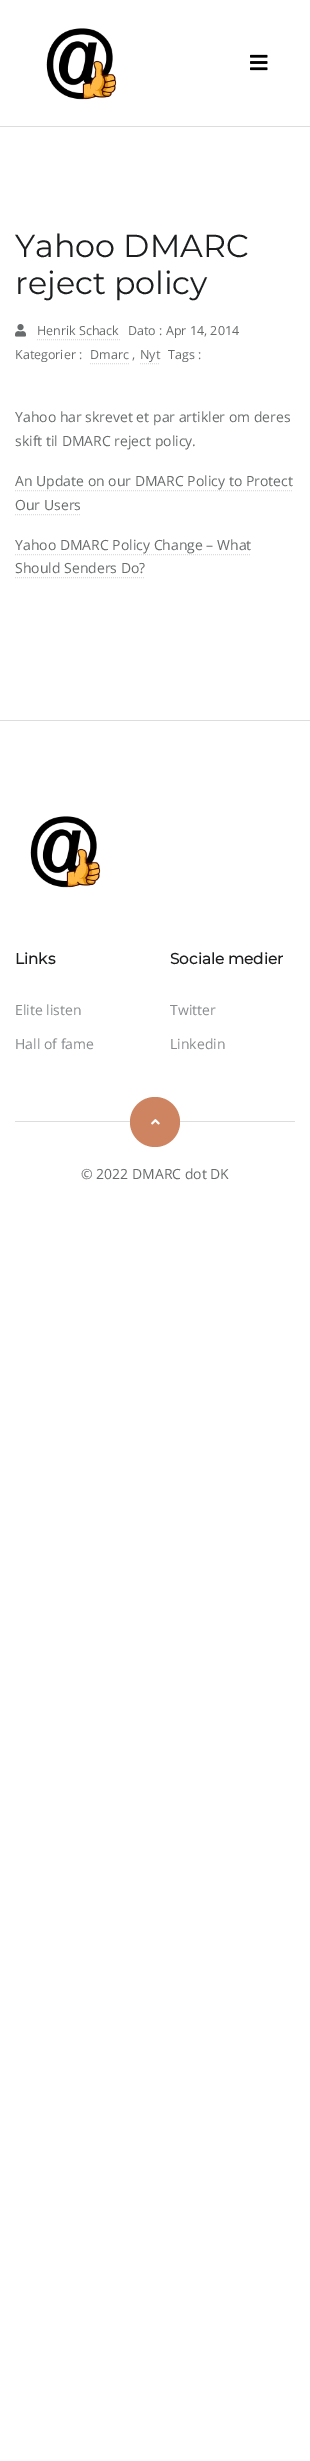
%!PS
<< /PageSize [310 2461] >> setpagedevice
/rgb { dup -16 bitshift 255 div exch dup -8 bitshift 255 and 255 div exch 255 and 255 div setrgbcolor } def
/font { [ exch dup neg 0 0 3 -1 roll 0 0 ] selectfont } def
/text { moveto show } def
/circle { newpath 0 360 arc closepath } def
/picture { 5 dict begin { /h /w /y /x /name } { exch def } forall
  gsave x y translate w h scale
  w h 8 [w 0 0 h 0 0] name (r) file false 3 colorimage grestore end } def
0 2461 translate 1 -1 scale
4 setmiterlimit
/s1 { /Montserrat-Thin 31.75 font 16#1C1D1F rgb } def
/s2 { /OpenSans-Regular 12.5 font 16#696C6D rgb } def
/s3 { /OpenSans-Regular 14 font 16#696C6D rgb } def
/s4 { /Montserrat-Bold 15.25 font 16#1C1D1F rgb } def
/s5 { /OpenSans-Regular 14 font 16#888C8E rgb } def
16#FFFFFF rgb
0 0 310 2461 rectfill
16#DDDDDD rgb
0 126 310 1 rectfill
(pic1.raw) 46 28 71 72 picture
(pic2.raw) 250 54 18 17 picture
s1
(Yahoo DMARC) 15 257 text
(reject policy) 15 294 text
(pic3.raw) 15 324 11 13 picture
s2
(Henrik Schack) 37 335 text
16#DDDDDD rgb
[1 1] 0 setdash
37 339.5 moveto 120 339.5 lineto stroke
s2
(Dato : Apr 14, 2014) 128 335 text
(Kategorier :) 15 359 text
(Dmarc ,) 90 359 text
16#DDDDDD rgb
90 363.5 moveto 129 363.5 lineto stroke
s2
(Nyt) 140 359 text
16#DDDDDD rgb
140 363.5 moveto 160 363.5 lineto stroke
s2
(Tags :) 168 359 text
s3
(Yahoo har skrevet et par artikler om deres) 15 422 text
(skift til DMARC reject policy.) 15 446 text
(An Update on our DMARC Policy to Protect) 15 486 text
16#DDDDDD rgb
15 490.5 moveto 293 490.5 lineto stroke
s3
(Our Users) 15 510 text
16#DDDDDD rgb
15 514.5 moveto 81 514.5 lineto stroke
s3
(Yahoo DMARC Policy Change – What) 15 550 text
16#DDDDDD rgb
15 554.5 moveto 251 554.5 lineto stroke
s3
(Should Senders Do?) 15 573 text
16#DDDDDD rgb
15 577.5 moveto 145 577.5 lineto stroke
0 720 310 1 rectfill
(pic1.raw) 30 816 71 72 picture
s4
(Links) 15 964 text
s5
(Elite listen) 15 1015 text
(Hall of fame) 15 1049 text
s4
(Sociale medier) 170 964 text
s5
(Twitter) 170 1015 text
(Linkedin) 170 1049 text
16#DDDDDD rgb
15 1121 280 1 rectfill
16#CE8460 rgb
155 1122 25 circle fill
(pic4.raw) 151 1119 9 6 picture
s3
(© 2022 DMARC dot DK) 81 1179 text
showpage
